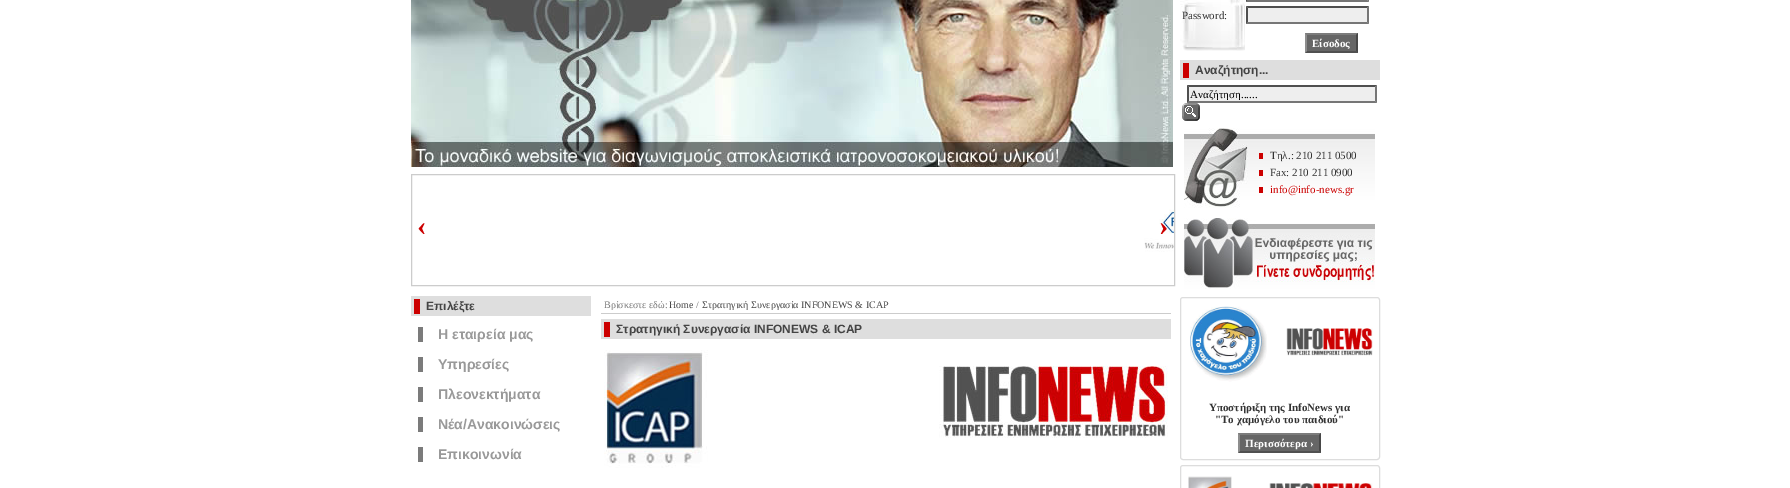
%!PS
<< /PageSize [1790 488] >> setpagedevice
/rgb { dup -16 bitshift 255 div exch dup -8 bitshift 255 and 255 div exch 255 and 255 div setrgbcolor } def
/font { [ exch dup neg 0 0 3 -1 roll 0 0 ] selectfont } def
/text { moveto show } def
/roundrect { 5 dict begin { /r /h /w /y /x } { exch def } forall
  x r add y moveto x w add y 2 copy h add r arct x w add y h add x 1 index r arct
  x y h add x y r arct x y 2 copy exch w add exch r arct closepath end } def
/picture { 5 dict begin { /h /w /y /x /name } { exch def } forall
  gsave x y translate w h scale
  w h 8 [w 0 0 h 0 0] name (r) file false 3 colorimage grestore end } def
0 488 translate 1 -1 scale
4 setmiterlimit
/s1 { /LiberationSerif-Bold 28 font 16#CC0000 rgb } def
/s2 { /LiberationSans-Bold 12 font 16#444444 rgb } def
/s3 { /LiberationSans-Bold 14 font 16#999999 rgb } def
/s4 { /LiberationSerif-Regular 10 font 16#777777 rgb } def
/s5 { /LiberationSerif-Regular 10 font 16#444444 rgb } def
/s6 { /LiberationSerif-Regular 11 font 16#333333 rgb } def
/s7 { /LiberationSerif-Bold 11 font 16#FFFFFF rgb } def
/s8 { /LiberationSerif-Regular 11 font 16#000000 rgb } def
/s9 { /LiberationSerif-Regular 11 font 16#CC0000 rgb } def
/s10 { /LiberationSerif-Bold 11 font 16#333333 rgb } def
16#FFFFFF rgb
0 0 1790 488 rectfill
(pic1.raw) 411 0 762 167 picture
16#CCCCCC rgb
411.5 174.5 763 111 rectstroke
s1
(‹) 417 235 text
(pic2.raw) 1144 209 30 43 picture
(›) 1159 235 text
16#DEDEDE rgb
411 296 180 20 rectfill
16#CC0000 rgb
414 299 6 15 rectfill
s2
(Επιλέξτε) 426 310 text
s3
(Η εταιρεία μας) 438 339 text
16#7B7B7B rgb
418 327 5 15 rectfill
s3
(Υπηρεσίες) 438 369 text
16#7B7B7B rgb
418 357 5 15 rectfill
s3
(Πλεονεκτήματα) 438 399 text
16#7B7B7B rgb
418 387 5 15 rectfill
s3
(Νέα/Ανακοινώσεις) 438 429 text
16#7B7B7B rgb
418 417 5 15 rectfill
s3
(Επικοινωνία) 438 459 text
16#7B7B7B rgb
418 447 5 15 rectfill
16#CCCCCC rgb
601 313 570 1 rectfill
s4
(Βρίσκεστε εδώ:) 604 308 text
s5
(Home) 669 308 text
s4
(/) 696 308 text
s5
(Στρατηγική Συνεργασία INFONEWS & ICAP) 702 308 text
16#DEDEDE rgb
601 319 570 20 rectfill
16#CC0000 rgb
604 322 6 15 rectfill
s2
(Στρατηγική Συνεργασία INFONEWS & ICAP) 616 333 text
(pic3.raw) 604 350 104 118 picture
(pic4.raw) 939 366 229 72 picture
(pic5.raw) 1180 0 65 51 picture
16#767676 rgb
1369 -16 moveto 1369 2 lineto 1367 0 lineto 1367 -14 lineto closepath fill
1369 2 moveto 1246 2 lineto 1248 0 lineto 1367 0 lineto closepath fill
16#4F4F4F rgb
1246 2 moveto 1246 -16 lineto 1248 -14 lineto 1248 0 lineto closepath fill
s6
(Password:) 1182 19 text
16#EEEEEE rgb
1246 6 123 18 rectfill
16#4F4F4F rgb
1246 6 moveto 1369 6 lineto 1367 8 lineto 1248 8 lineto closepath fill
16#767676 rgb
1369 6 moveto 1369 24 lineto 1367 22 lineto 1367 8 lineto closepath fill
1369 24 moveto 1246 24 lineto 1248 22 lineto 1367 22 lineto closepath fill
16#4F4F4F rgb
1246 24 moveto 1246 6 lineto 1248 8 lineto 1248 22 lineto closepath fill
16#666666 rgb
1305 33 53 20 rectfill
16#7C7C7C rgb
1305 33 moveto 1358 33 lineto 1356 35 lineto 1307 35 lineto closepath fill
16#484848 rgb
1358 33 moveto 1358 53 lineto 1356 51 lineto 1356 35 lineto closepath fill
16#505050 rgb
1358 53 moveto 1305 53 lineto 1307 51 lineto 1356 51 lineto closepath fill
16#8D8D8D rgb
1305 53 moveto 1305 33 lineto 1307 35 lineto 1307 51 lineto closepath fill
s7
(Είσοδος) 1312 47 text
16#DEDEDE rgb
1180 60 200 20 rectfill
16#CC0000 rgb
1183 63 6 15 rectfill
s2
(Αναζήτηση...) 1195 74 text
16#EEEEEE rgb
1187 85 190 18 rectfill
16#4F4F4F rgb
1187 85 moveto 1377 85 lineto 1375 87 lineto 1189 87 lineto closepath fill
16#767676 rgb
1377 85 moveto 1377 103 lineto 1375 101 lineto 1375 87 lineto closepath fill
1377 103 moveto 1187 103 lineto 1189 101 lineto 1375 101 lineto closepath fill
16#4F4F4F rgb
1187 103 moveto 1187 85 lineto 1189 87 lineto 1189 101 lineto closepath fill
gsave
1190 88 184 12 rectclip
s8
(Αναζήτηση......) 1190 98 text
grestore
(pic6.raw) 1182 103 18 18 picture
(pic7.raw) 1184 128 191 80 picture
16#CC0000 rgb
1259 153 4 6 rectfill
s6
(Τηλ.: 210 211 0500) 1270 159 text
16#CC0000 rgb
1259 170 4 6 rectfill
s6
(Fax: 210 211 0900) 1270 176 text
16#CC0000 rgb
1259 187 4 6 rectfill
(info@info-news.gr) 1270 193 text
(pic8.raw) 1184 218 191 71 picture
16#DDDDDD rgb
1180.5 297.5 199 162 2.5 roundrect stroke
(pic9.raw) 1190 306 77 76 picture
(pic10.raw) 1286 328 87 28 picture
s10
(Υποστήριξη της InfoNews για) 1209 411 text
("Το χαμόγελο του παιδιού") 1215 423 text
16#666666 rgb
1238 433 83 20 rectfill
s7
(Περισσότερα ›) 1245 447 text
16#7C7C7C rgb
1238 433 moveto 1321 433 lineto 1319 435 lineto 1240 435 lineto closepath fill
16#484848 rgb
1321 433 moveto 1321 453 lineto 1319 451 lineto 1319 435 lineto closepath fill
16#505050 rgb
1321 453 moveto 1238 453 lineto 1240 451 lineto 1319 451 lineto closepath fill
16#8D8D8D rgb
1238 453 moveto 1238 433 lineto 1240 435 lineto 1240 451 lineto closepath fill
16#DDDDDD rgb
1180.5 465.5 199 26 2.5 roundrect stroke
(pic11.raw) 1188 476 44 12 picture
(pic12.raw) 1269 483 104 5 picture
showpage
